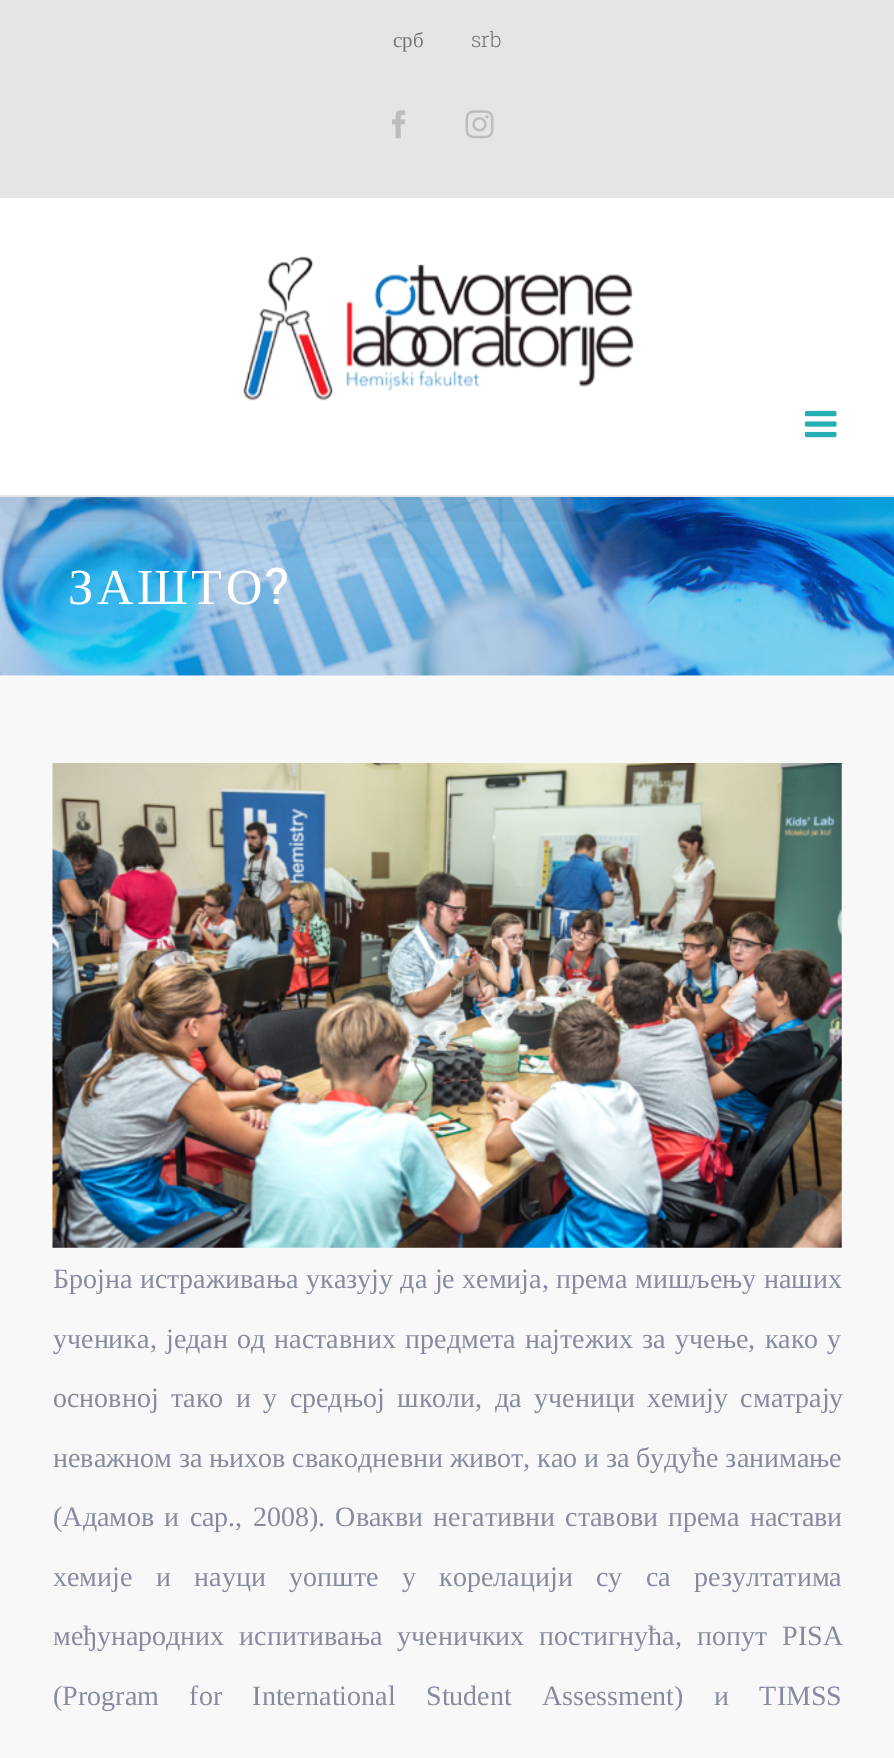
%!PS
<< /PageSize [894 1758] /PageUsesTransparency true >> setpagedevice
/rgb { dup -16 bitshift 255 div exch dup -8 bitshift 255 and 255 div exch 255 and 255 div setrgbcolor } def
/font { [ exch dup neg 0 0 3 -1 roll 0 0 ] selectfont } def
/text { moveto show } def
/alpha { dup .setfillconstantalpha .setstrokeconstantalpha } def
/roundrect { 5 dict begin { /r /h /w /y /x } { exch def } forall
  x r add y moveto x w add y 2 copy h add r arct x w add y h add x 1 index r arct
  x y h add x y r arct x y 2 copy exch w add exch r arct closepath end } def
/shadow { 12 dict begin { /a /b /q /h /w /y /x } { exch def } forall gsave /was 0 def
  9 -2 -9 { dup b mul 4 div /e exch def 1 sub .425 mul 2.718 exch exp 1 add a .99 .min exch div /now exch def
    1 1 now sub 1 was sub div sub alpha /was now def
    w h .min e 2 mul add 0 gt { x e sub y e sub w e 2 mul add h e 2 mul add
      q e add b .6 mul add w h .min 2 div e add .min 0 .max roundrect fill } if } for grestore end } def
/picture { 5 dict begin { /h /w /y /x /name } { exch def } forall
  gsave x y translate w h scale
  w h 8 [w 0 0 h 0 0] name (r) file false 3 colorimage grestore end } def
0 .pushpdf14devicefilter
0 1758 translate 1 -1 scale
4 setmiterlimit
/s1 { /LiberationSerif-Regular 21 font 16#747474 rgb } def
/s2 { /RobotoSlab-Light 21 font 16#747474 rgb } def
16#FFFFFF rgb
0 0 894 1758 rectfill
(pic5.raw) 0 497 894 179 picture
gsave
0 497 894 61 rectclip
16#000000 rgb
4 21 887 490 0 44 0.14 shadow
grestore
16#E5E5E5 rgb
0 0 894 198 rectfill
s1
(срб) 393 47 text
s2
(srb) 471 47 text
(pic1.raw) 392 110 13 29 picture
(pic2.raw) 465 110 29 29 picture
16#E5E5E5 rgb
0 495 894 2 rectfill
(pic3.raw) 243 256 391 145 picture
(pic4.raw) 805 410 32 28 picture
/LiberationSerif-Regular 50.5 font
16#FFFFFF rgb
68 604 moveto 3.5 0 (ЗАШТО) ashow
/RobotoSlab-Regular 50.5 font
265 604 moveto 3.5 0 (?) ashow
16#F8F8F8 rgb
0 676 894 1082 rectfill
(pic6.raw) 52 763 790 485 picture
/LiberationSerif-Regular 28 font
16#858A9F rgb
53 1288 moveto 0.5 0 32 (Бројна истраживања указују да је хемија, према мишљењу наших) widthshow
53 1348 moveto 2.25 0 32 (ученика, један од наставних предмета најтежих за учење, како у) widthshow
53 1407 moveto 5.5 0 32 (основној тако и у средњој школи, да ученици хемију сматрају) widthshow
53 1467 moveto -0.25 0 32 (неважном за њихов свакодневни живот, као и за будуће занимање) widthshow
53 1526 moveto 3.25 0 32 (\(Адамов и сар., 2008\). Овакви негативни ставови према настави) widthshow
53 1586 moveto 16.5 0 32 (хемије и науци уопште у корелацији су са резултатима) widthshow
53 1645 moveto 8 0 32 (међународних испитивања ученичких постигнућа, попут PISA) widthshow
53 1705 moveto 23.5 0 32 (\(Program for International Student Assessment\) и TIMSS) widthshow
.poppdf14devicefilter showpage
